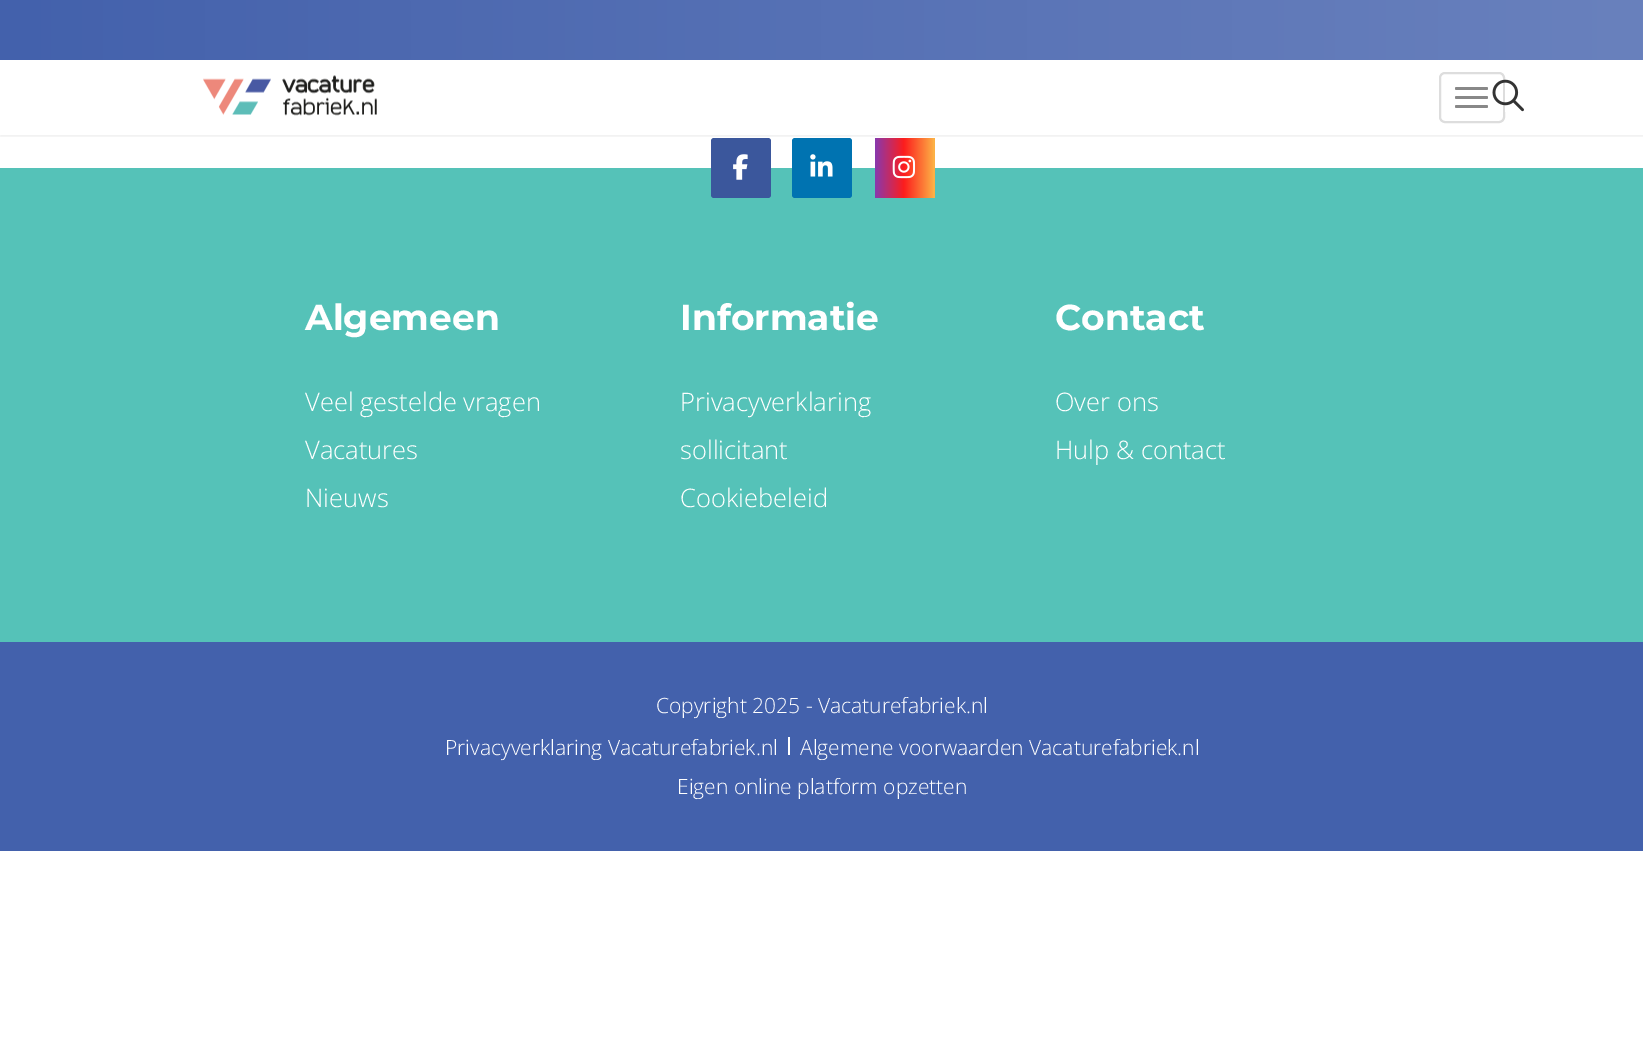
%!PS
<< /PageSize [1643 1056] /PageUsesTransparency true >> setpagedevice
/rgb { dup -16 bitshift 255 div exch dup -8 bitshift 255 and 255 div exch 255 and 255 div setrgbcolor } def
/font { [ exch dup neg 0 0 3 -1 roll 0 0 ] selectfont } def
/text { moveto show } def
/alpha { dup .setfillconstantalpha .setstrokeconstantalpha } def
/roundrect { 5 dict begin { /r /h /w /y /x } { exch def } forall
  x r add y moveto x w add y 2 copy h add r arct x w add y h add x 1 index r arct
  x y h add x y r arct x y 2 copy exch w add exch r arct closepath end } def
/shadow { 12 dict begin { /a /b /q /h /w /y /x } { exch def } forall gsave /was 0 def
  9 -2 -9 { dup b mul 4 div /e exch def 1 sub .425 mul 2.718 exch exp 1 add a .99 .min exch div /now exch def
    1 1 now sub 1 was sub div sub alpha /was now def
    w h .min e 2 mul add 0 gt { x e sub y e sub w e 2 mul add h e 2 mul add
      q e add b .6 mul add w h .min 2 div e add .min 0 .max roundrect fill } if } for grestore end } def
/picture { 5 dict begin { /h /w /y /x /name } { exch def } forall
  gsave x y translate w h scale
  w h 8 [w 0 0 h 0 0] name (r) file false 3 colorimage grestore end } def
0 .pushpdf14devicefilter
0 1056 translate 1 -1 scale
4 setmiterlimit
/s1 { /Montserrat-Thin 36 font 16#FFFFFF rgb } def
/s2 { /OpenSans-Light 25.5 font 16#FFFFFF rgb } def
/s3 { /OpenSans-Light 21 font 16#FFFFFF rgb } def
16#FFFFFF rgb
0 0 1643 1056 rectfill
16#55C2B8 rgb
0 168 1643 474 rectfill
16#3B579C rgb
711 138 60 60 3 roundrect fill
16#0073B1 rgb
792 138 60 60 3 roundrect fill
gsave 875 138 60 60 3 roundrect clip newpath
<< /ShadingType 2 /ColorSpace /DeviceRGB /Coords [874 168 934 168] /Extend [true true] /Function << /FunctionType 3 /Domain [0 1] /Functions [<< /FunctionType 2 /Domain [0 1] /C0 [0.514 0.227 0.706] /C1 [0.992 0.114 0.114] /N 1 >> << /FunctionType 2 /Domain [0 1] /C0 [0.992 0.114 0.114] /C1 [0.988 0.69 0.271] /N 1 >>] /Bounds [0.5] /Encode [0 1 0 1] >> >> shfill grestore
gsave
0 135 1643 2 rectclip
16#000000 rgb
0 2 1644 135 0 1 0.05 shadow
grestore
gsave 0 0 moveto 1643 0 lineto 1643 60 lineto 0 60 lineto closepath clip newpath
<< /ShadingType 2 /ColorSpace /DeviceRGB /Coords [0 30 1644 30] /Extend [true true] /Function << /FunctionType 2 /Domain [0 1] /C0 [0.263 0.38 0.675] /C1 [0.412 0.506 0.741] /N 1 >> >> shfill grestore
(pic1.raw) 203 75 174 41 picture
16#DDDDDD rgb
2 setlinewidth
1440 73 64 49 5 roundrect stroke
16#888888 rgb
1455 87 33 3 1.5 roundrect fill
1455 96 33 3 1.5 roundrect fill
1455 105 33 3 1.5 roundrect fill
(pic2.raw) 1492 79 32 33 picture
(pic3.raw) 733 154 15 26 picture
(pic4.raw) 810 154 23 23 picture
(pic5.raw) 892 155 24 24 picture
s1
(Algemeen) 305 330 text
s2
(Veel gestelde vragen) 305 411 text
(Vacatures) 305 459 text
(Nieuws) 305 507 text
s1
(Informatie) 680 330 text
s2
(Privacyverklaring) 680 411 text
(sollicitant) 680 459 text
(Cookiebeleid) 680 507 text
s1
(Contact) 1055 330 text
s2
(Over ons) 1055 411 text
(Hulp & contact) 1055 459 text
16#4361AC rgb
0 642 1643 209 rectfill
s3
(Copyright 2025 - Vacaturefabriek.nl) 656 713 text
(Privacyverklaring Vacaturefabriek.nl) 445 755 text
788 737 2 18 rectfill
(Algemene voorwaarden Vacaturefabriek.nl) 800 755 text
(Eigen online platform opzetten) 677 794 text
.poppdf14devicefilter showpage
